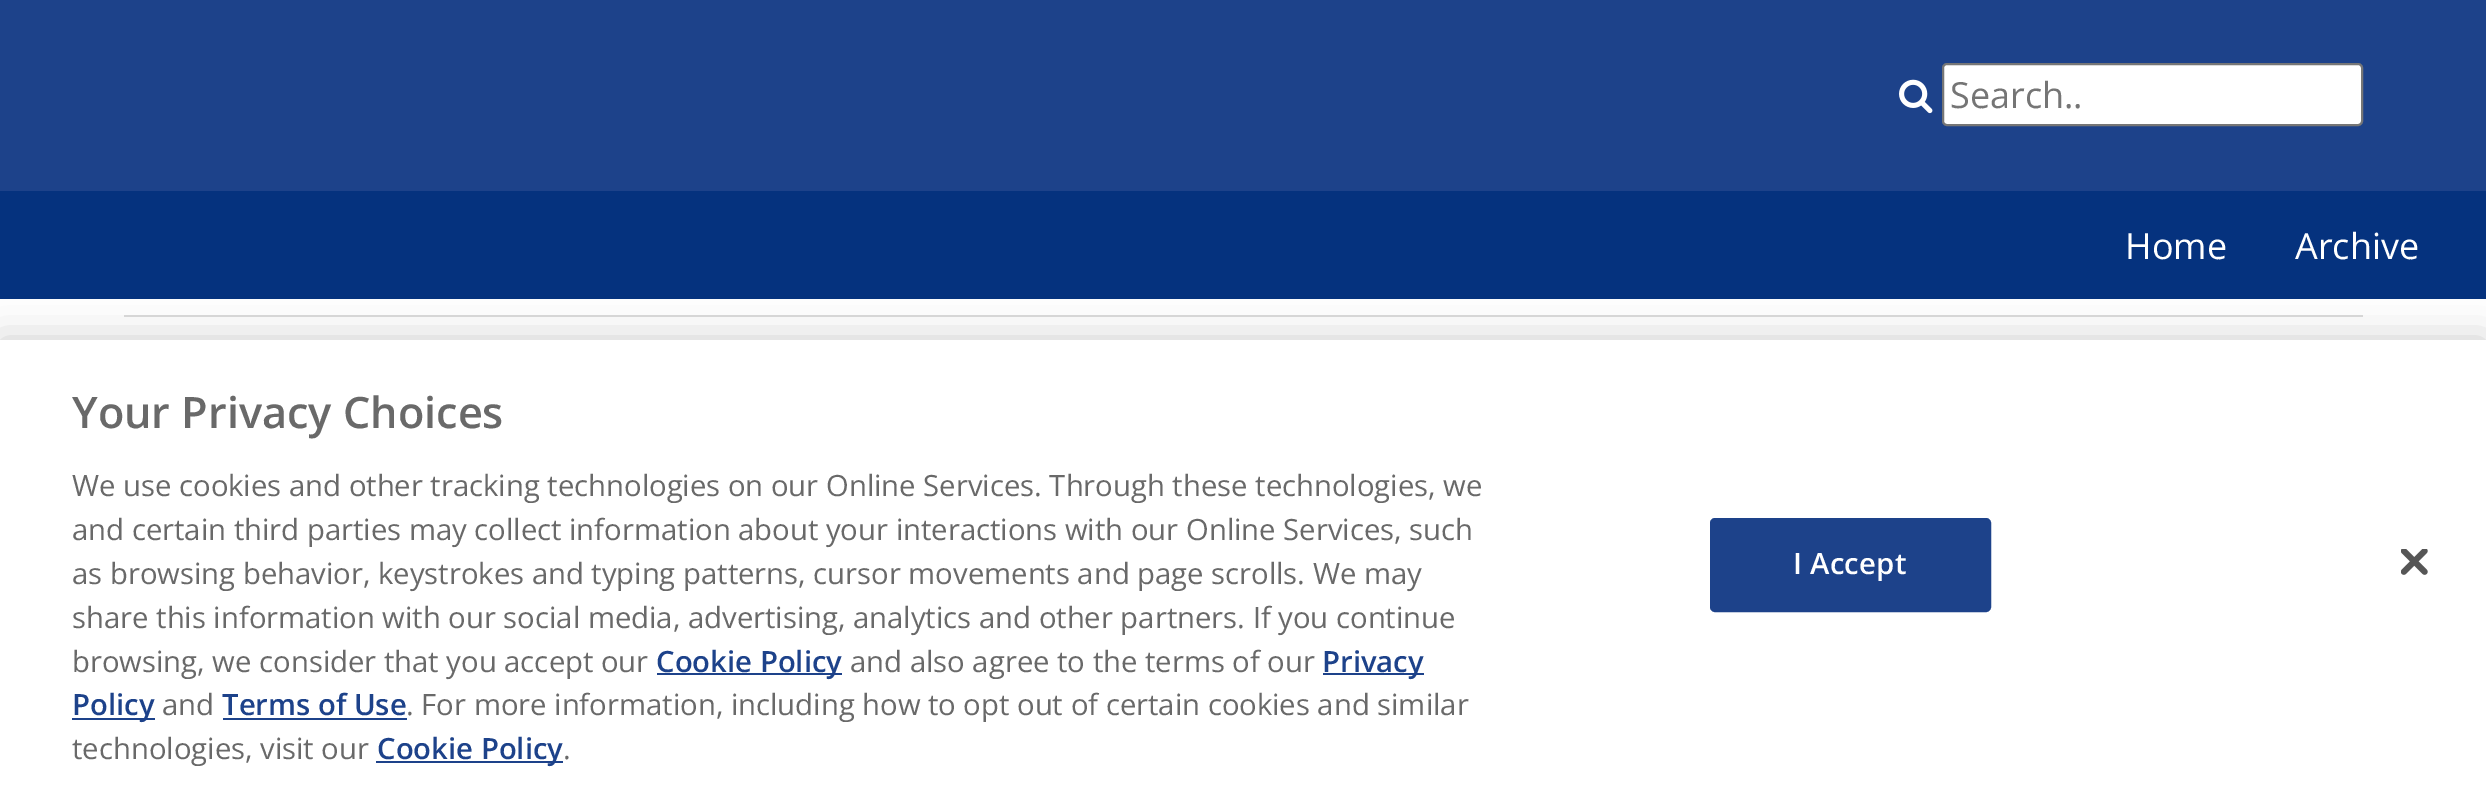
%!PS
<< /PageSize [2486 793] /PageUsesTransparency true >> setpagedevice
/rgb { dup -16 bitshift 255 div exch dup -8 bitshift 255 and 255 div exch 255 and 255 div setrgbcolor } def
/font { [ exch dup neg 0 0 3 -1 roll 0 0 ] selectfont } def
/text { moveto show } def
/alpha { dup .setfillconstantalpha .setstrokeconstantalpha } def
/roundrect { 5 dict begin { /r /h /w /y /x } { exch def } forall
  x r add y moveto x w add y 2 copy h add r arct x w add y h add x 1 index r arct
  x y h add x y r arct x y 2 copy exch w add exch r arct closepath end } def
/shadow { 12 dict begin { /a /b /q /h /w /y /x } { exch def } forall gsave /was 0 def
  9 -2 -9 { dup b mul 4 div /e exch def 1 sub .425 mul 2.718 exch exp 1 add a .99 .min exch div /now exch def
    1 1 now sub 1 was sub div sub alpha /was now def
    w h .min e 2 mul add 0 gt { x e sub y e sub w e 2 mul add h e 2 mul add
      q e add b .6 mul add w h .min 2 div e add .min 0 .max roundrect fill } if } for grestore end } def
/picture { 5 dict begin { /h /w /y /x /name } { exch def } forall
  gsave x y translate w h scale
  w h 8 [w 0 0 h 0 0] name (r) file false 3 colorimage grestore end } def
0 .pushpdf14devicefilter
0 793 translate 1 -1 scale
4 setmiterlimit
/s1 { /OpenSans-Regular 36 font 16#757575 rgb } def
/s2 { /OpenSans-Regular 36 font 16#FFFFFF rgb } def
/s3 { /OpenSans-SemiBold 43.25 font 16#696969 rgb } def
/s4 { /OpenSans-Regular 29.25 font 16#696969 rgb } def
/s5 { /OpenSans-SemiBold 29.25 font 16#1D428A rgb } def
16#FFFFFF rgb
0 0 2486 793 rectfill
16#1D428A rgb
0 0 2486 191 rectfill
(pic1.raw) 1899 79 34 35 picture
16#FFFFFF rgb
1943 64 419 61 4 roundrect gsave fill grestore
16#767676 rgb
2 setlinewidth
stroke
s1
(Search..) 1950 108 text
16#05327E rgb
0 191 2486 108 rectfill
s2
(Home) 2125 259 text
(Archive) 2295 259 text
16#DDDDDD rgb
124 315 2239 2 rectfill
16#000000 rgb
0 340 2486 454 0 20 0.2 shadow
16#FFFFFF rgb
0 340 2486 453 rectfill
s3
(Your Privacy Choices) 72 428 text
s4
(We use cookies and other tracking technologies on our Online Services. Through these technologies, we) 72 496 text
(and certain third parties may collect information about your interactions with our Online Services, such) 72 540 text
(as browsing behavior, keystrokes and typing patterns, cursor movements and page scrolls. We may) 72 584 text
(share this information with our social media, advertising, analytics and other partners. If you continue) 72 628 text
(browsing, we consider that you accept our) 72 672 text
16#1D428A rgb
657 673 185 2 rectfill
s5
(Cookie Policy) 656 672 text
s4
(and also agree to the terms of our) 850 672 text
16#1D428A rgb
1323 673 101 2 rectfill
s5
(Privacy) 1322 672 text
72 718 83 2 rectfill
(Policy) 72 715 text
s4
(and) 162 715 text
s5
(Terms of Use) 222 715 text
223 718 184 2 rectfill
s4
(. For more information, including how to opt out of certain cookies and similar) 406 715 text
(technologies, visit our) 72 759 text
16#1D428A rgb
376 761 187 2 rectfill
s5
(Cookie Policy) 377 759 text
s4
(.) 563 759 text
16#1D428A rgb
1711 519 279 92 4 roundrect gsave fill grestore
stroke
/OpenSans-SemiBold 29.25 font
16#FFFFFF rgb
1793 574 moveto 0.25 0 (I Accept) ashow
(pic2.raw) 2401 549 27 26 picture
.poppdf14devicefilter showpage
